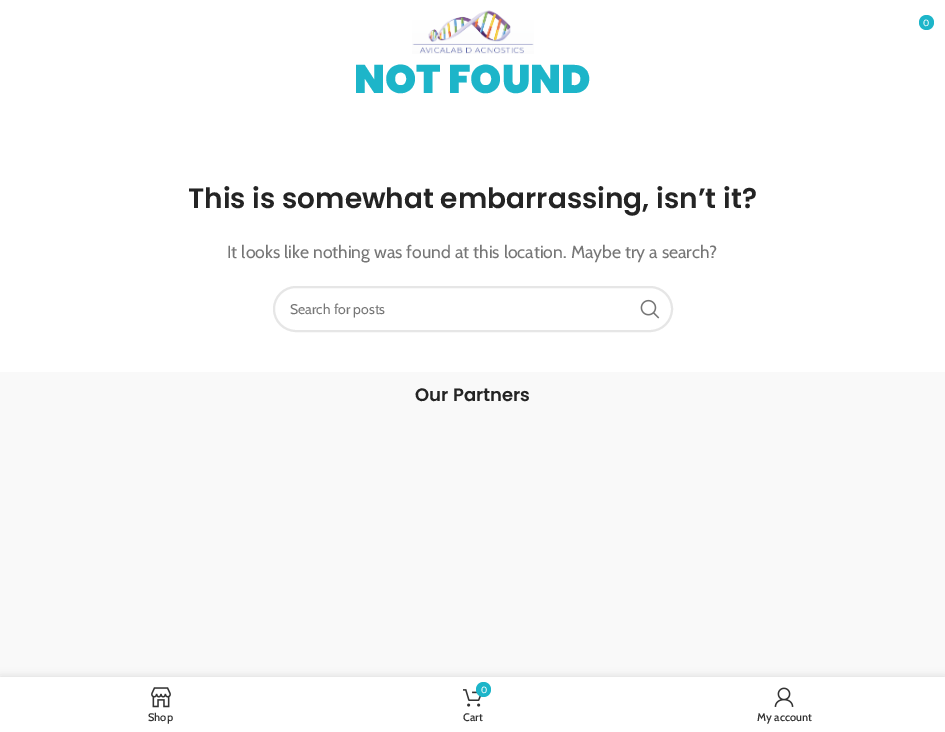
%!PS
<< /PageSize [945 732] /PageUsesTransparency true >> setpagedevice
/rgb { dup -16 bitshift 255 div exch dup -8 bitshift 255 and 255 div exch 255 and 255 div setrgbcolor } def
/font { [ exch dup neg 0 0 3 -1 roll 0 0 ] selectfont } def
/text { moveto show } def
/alpha { dup .setfillconstantalpha .setstrokeconstantalpha } def
/circle { newpath 0 360 arc closepath } def
/roundrect { 5 dict begin { /r /h /w /y /x } { exch def } forall
  x r add y moveto x w add y 2 copy h add r arct x w add y h add x 1 index r arct
  x y h add x y r arct x y 2 copy exch w add exch r arct closepath end } def
/shadow { 12 dict begin { /a /b /q /h /w /y /x } { exch def } forall gsave /was 0 def
  9 -2 -9 { dup b mul 4 div /e exch def 1 sub .425 mul 2.718 exch exp 1 add a .99 .min exch div /now exch def
    1 1 now sub 1 was sub div sub alpha /was now def
    w h .min e 2 mul add 0 gt { x e sub y e sub w e 2 mul add h e 2 mul add
      q e add b .6 mul add w h .min 2 div e add .min 0 .max roundrect fill } if } for grestore end } def
/picture { 5 dict begin { /h /w /y /x /name } { exch def } forall
  gsave x y translate w h scale
  w h 8 [w 0 0 h 0 0] name (r) file false 3 colorimage grestore end } def
0 .pushpdf14devicefilter
0 732 translate 1 -1 scale
4 setmiterlimit
/s1 { /Cabin-Regular 9 font 16#FFFFFF rgb } def
/s2 { /Poppins-Black 39.75 font 16#1DB5C9 rgb } def
/s3 { /Poppins-SemiBold 28 font 16#242424 rgb } def
/s4 { /Cabin-Regular 17.6 font 16#767676 rgb } def
/s5 { /Cabin-Regular 14 font 16#767676 rgb } def
/s6 { /Poppins-SemiBold 18 font 16#242424 rgb } def
/s7 { /Cabin-SemiBold 11 font 16#333333 rgb } def
16#FFFFFF rgb
0 0 945 732 rectfill
(pic1.raw) 412 10 122 44 picture
16#1DB5C9 rgb
926.5 22.5 7.5 circle fill
s1
(0) 923 26 text
s2
(NOT FOUND) 354 93 text
s3
(This is somewhat embarrassing, isn’t it?) 188 208 text
s4
(It looks like nothing was found at this location. Maybe try a search?) 227 258 text
16#E6E6E6 rgb
2 setlinewidth
274 287 398 44 22 roundrect stroke
s5
(Search for posts) 290 314 text
(pic2.raw) 640 299 20 20 picture
16#F9F9F9 rgb
0 372 945 305 rectfill
s6
(Our Partners) 415 401 text
16#000000 rgb
0 677 945 55 0 4.5 0.12 shadow
16#FFFFFF rgb
0 677 945 55 rectfill
(pic3.raw) 151 687 20 21 picture
s7
(Shop) 148 721 text
(pic4.raw) 463 689 19 18 picture
16#1DB5C9 rgb
483.5 689.5 7.5 circle fill
s1
(0) 481 693 text
s7
(Cart) 463 721 text
(pic5.raw) 774 687 20 20 picture
(My account) 757 721 text
.poppdf14devicefilter showpage
